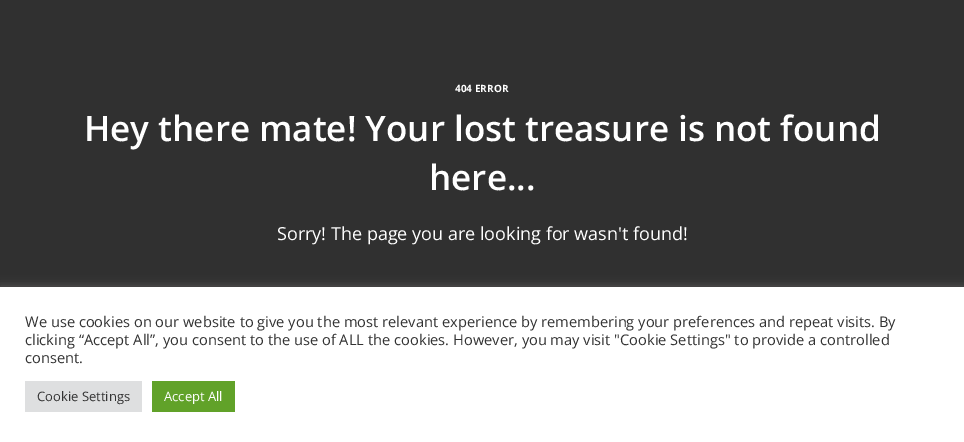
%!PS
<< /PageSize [964 442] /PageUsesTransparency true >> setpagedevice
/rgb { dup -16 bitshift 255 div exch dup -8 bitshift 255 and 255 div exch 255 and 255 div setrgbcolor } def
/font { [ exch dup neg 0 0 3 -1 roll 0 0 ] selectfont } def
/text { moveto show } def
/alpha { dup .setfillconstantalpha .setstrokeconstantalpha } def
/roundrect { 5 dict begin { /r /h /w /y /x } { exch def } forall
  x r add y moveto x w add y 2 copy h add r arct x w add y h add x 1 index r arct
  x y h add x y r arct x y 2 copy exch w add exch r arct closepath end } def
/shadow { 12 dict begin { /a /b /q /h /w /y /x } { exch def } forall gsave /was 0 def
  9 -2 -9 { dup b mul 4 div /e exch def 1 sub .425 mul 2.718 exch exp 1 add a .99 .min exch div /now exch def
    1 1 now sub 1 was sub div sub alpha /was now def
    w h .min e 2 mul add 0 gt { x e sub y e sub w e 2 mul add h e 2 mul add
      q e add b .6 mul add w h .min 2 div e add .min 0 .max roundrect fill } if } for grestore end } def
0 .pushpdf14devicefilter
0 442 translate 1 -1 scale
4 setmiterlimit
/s1 { /OpenSans-Bold 10 font 16#FFFFFF rgb } def
/s2 { /OpenSans-SemiBold 35 font 16#FFFFFF rgb } def
/s3 { /OpenSans-Regular 18 font 16#FFFFFF rgb } def
/s4 { /OpenSans-Regular 14.67 font 16#333333 rgb } def
/s5 { /OpenSans-Regular 13 font 16#333333 rgb } def
/s6 { /OpenSans-Regular 13 font 16#FFFFFF rgb } def
16#303030 rgb
0 0 964 442 rectfill
s1
(404 ERROR) 455 92 text
s2
(Hey there mate! Your lost treasure is not found) 84 141 text
(here...) 429 190 text
s3
(Sorry! The page you are looking for wasn't found!) 277 240 text
16#ACABAB rgb
0 286 964 155 0 5 0.3 shadow
16#FFFFFF rgb
0 287 964 155 rectfill
s4
(We use cookies on our website to give you the most relevant experience by remembering your preferences and repeat visits. By) 25 327 text
(clicking “Accept All”, you consent to the use of ALL the cookies. However, you may visit "Cookie Settings" to provide a controlled) 25 345 text
(consent.) 25 363 text
16#DEDFE0 rgb
25 381 117 31 rectfill
s5
(Cookie Settings) 37 401 text
16#61A229 rgb
152 381 83 31 rectfill
s6
(Accept All) 164 401 text
.poppdf14devicefilter showpage
